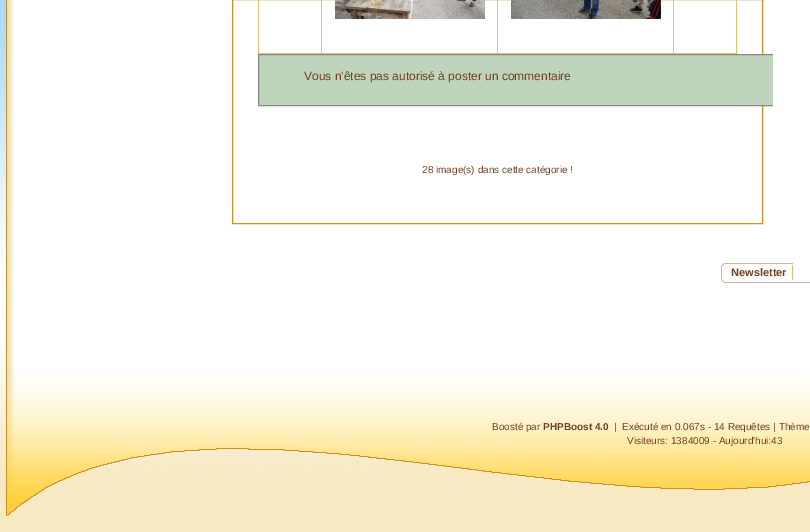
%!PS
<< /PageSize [810 532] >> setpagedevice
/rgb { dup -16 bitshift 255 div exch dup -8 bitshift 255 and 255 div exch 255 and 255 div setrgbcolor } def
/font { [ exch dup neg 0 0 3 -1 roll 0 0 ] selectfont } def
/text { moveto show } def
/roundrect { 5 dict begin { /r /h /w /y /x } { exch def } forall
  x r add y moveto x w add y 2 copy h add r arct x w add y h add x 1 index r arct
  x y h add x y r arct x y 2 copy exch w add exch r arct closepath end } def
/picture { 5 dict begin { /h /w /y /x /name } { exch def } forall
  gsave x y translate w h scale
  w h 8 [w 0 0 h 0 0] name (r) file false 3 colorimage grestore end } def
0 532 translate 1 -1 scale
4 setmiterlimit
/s1 { /LiberationSans-Regular 12 font 16#734023 rgb } def
/s2 { /LiberationSans-Regular 10 font 16#734023 rgb } def
/s3 { /LiberationSans-Bold 11 font 16#734023 rgb } def
/s4 { /LiberationSans-Bold 10 font 16#734023 rgb } def
16#FFFFFF rgb
0 0 810 532 rectfill
(pic1.raw) 0 0 810 532 picture
(pic2.raw) 6 0 804 330 picture
16#D08F1E rgb
232.5 -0.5 530 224 rectstroke
16#E7BD6E rgb
736 0 1 54 rectfill
673 53 64 1 rectfill
673 0 1 54 rectfill
497 53 177 1 rectfill
497 0 1 54 rectfill
321 53 177 1 rectfill
321 0 1 54 rectfill
258 53 64 1 rectfill
258 0 1 54 rectfill
(pic3.raw) 335 0 150 19 picture
(pic4.raw) 511 0 150 19 picture
16#BED5BB rgb
259 55 514 50 rectfill
gsave
208 0 565 244 rectclip
16#888888 rgb
258.5 54.5 521 51 rectstroke
grestore
s1
(Vous n'êtes pas autorisé à poster un commentaire) 304 80 text
s2
(28 image\(s\) dans cette catégorie !) 422 173 text
(pic5.raw) 721 263 89 20 picture
s3
(Newsletter) 731 276 text
16#FFFFFF rgb
792 263 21 18 3 roundrect fill
16#E7BD6E rgb
792 265 1 15 rectfill
(pic6.raw) 6 330 804 186 picture
s2
(Boosté par) 492 430 text
s4
(PHPBoost 4.0) 543 430 text
s2
(|) 614 430 text
(Exécuté en 0.067s - 14 Requêtes | Thème) 622 430 text
(Visiteurs: 1384009 - Aujourd'hui:43) 627 444 text
showpage
